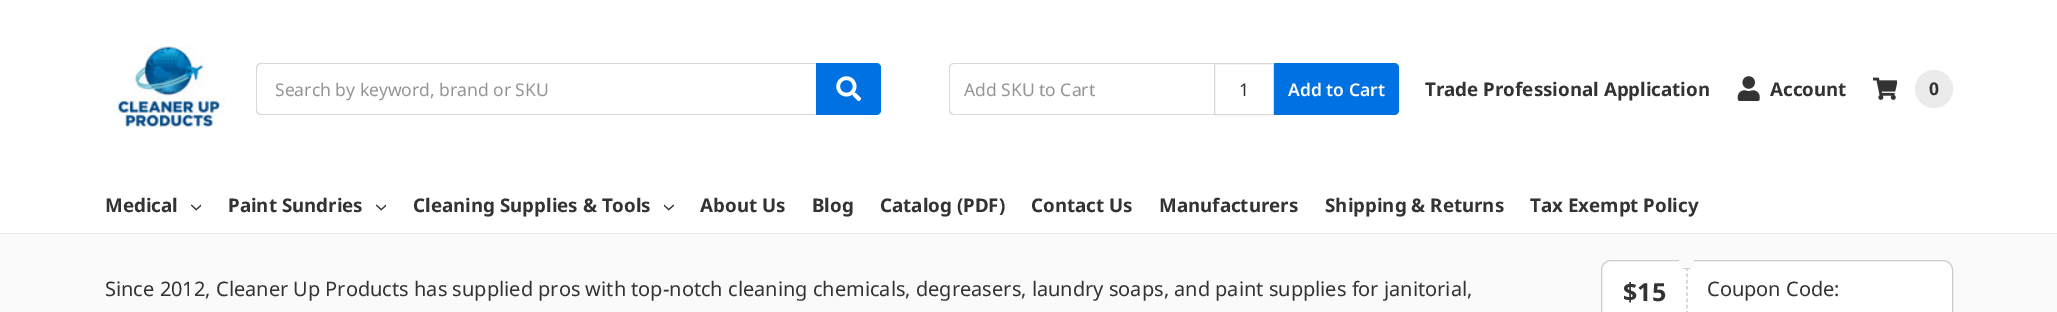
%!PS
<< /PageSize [2057 312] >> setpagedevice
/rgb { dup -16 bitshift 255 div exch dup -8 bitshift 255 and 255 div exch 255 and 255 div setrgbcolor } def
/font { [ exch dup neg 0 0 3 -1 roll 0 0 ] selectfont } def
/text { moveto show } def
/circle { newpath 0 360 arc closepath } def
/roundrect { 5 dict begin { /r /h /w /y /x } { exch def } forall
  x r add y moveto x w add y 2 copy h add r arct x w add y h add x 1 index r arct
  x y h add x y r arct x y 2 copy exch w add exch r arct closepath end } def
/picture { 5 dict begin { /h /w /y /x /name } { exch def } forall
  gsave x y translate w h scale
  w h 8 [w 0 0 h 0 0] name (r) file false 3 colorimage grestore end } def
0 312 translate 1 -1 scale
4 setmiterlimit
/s1 { /NotoSans-Regular 17.5 font 16#959595 rgb } def
/s2 { /NotoSans-Regular 17.5 font 16#333333 rgb } def
/s3 { /NotoSans-SemiBold 17.5 font 16#FFFFFF rgb } def
/s4 { /NotoSans-Bold 18.75 font 16#333333 rgb } def
/s5 { /NotoSans-Bold 17.5 font 16#333333 rgb } def
/s6 { /NotoSans-Regular 20 font 16#333333 rgb } def
/s7 { /NotoSans-Bold 25 font 16#333333 rgb } def
16#FAFAFA rgb
0 0 2057 312 rectfill
16#FFFFFF rgb
0 0 2057 233 rectfill
16#EBEBEB rgb
0 233 2057 1 rectfill
(pic1.raw) 115 46 110 81 picture
16#D9D9D9 rgb
261 63 moveto 258 63 256 65 256 68 curveto 256 110 lineto 256 113 258 115 261 115 curveto 876 115 lineto 877 115 878 115 879 114 curveto 261 114 lineto 259 114 257 112 257 110 curveto 257 68 lineto 257 66 259 64 261 64 curveto 879 64 lineto 876 63 lineto closepath 880 65 moveto 880 113 lineto 881 112 881 111 881 110 curveto 881 68 lineto 881 67 881 66 880 65 curveto closepath eofill
s1
(Search by keyword, brand or SKU) 275 96 text
16#0071E3 rgb
816 63 moveto 876 63 lineto 879 63 881 65 881 68 curveto 881 110 lineto 881 113 879 115 876 115 curveto 816 115 lineto closepath fill
(pic2.raw) 836 76 25 25 picture
16#D9D9D9 rgb
954 64 moveto 1214 64 lineto 1214 63 lineto 954 63 lineto 951 63 949 65 949 68 curveto 949 110 lineto 949 113 951 115 954 115 curveto 1214 115 lineto 1214 114 lineto 954 114 lineto 952 114 950 112 950 110 curveto 950 68 lineto 950 65 952 64 954 64 curveto closepath fill
s1
(Add SKU to Cart) 964 96 text
16#D9D9D9 rgb
1214.5 63.5 59 51 rectstroke
s2
(1) 1239 96 text
16#0071E3 rgb
1274 63 moveto 1394 63 lineto 1397 63 1399 65 1399 68 curveto 1399 110 lineto 1399 113 1397 115 1394 115 curveto 1274 115 lineto closepath fill
s3
(Add to Cart) 1288 96 text
s4
(Trade Professional Application) 1425 96 text
(pic3.raw) 1737 76 23 25 picture
(Account) 1770 96 text
(pic4.raw) 1873 77 24 23 picture
16#EBEBEB rgb
1934 89 19 circle fill
s5
(0) 1929 95 text
s4
(Medical) 105 212 text
(pic5.raw) 191 204 10 7 picture
(Paint Sundries) 228 212 text
(pic5.raw) 376 204 10 7 picture
(Cleaning Supplies & Tools) 413 212 text
(pic6.raw) 664 204 10 7 picture
(About Us) 700 212 text
(Blog) 812 212 text
(Catalog \(PDF\)) 880 212 text
(Contact Us) 1031 212 text
(Manufacturers) 1159 212 text
(Shipping & Returns) 1325 212 text
(Tax Exempt Policy) 1530 212 text
s6
(Since 2012, Cleaner Up Products has supplied pros with top-notch cleaning chemicals, degreasers, laundry soaps, and paint supplies for janitorial,) 105 296 text
16#FFFFFF rgb
1601.5 260.5 351 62 9.5 roundrect gsave fill grestore
16#CCCCCC rgb
stroke
1.2 setlinewidth
[3.75 2.5] 0 setdash
1687 261 moveto 1687 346 lineto stroke
16#FAFAFA rgb
1686.5 261.5 7.5 circle fill
16#CCCCCC rgb
1683 268 7 1 rectfill
s7
($15) 1623 301 text
s6
(Coupon Code:) 1707 296 text
showpage
